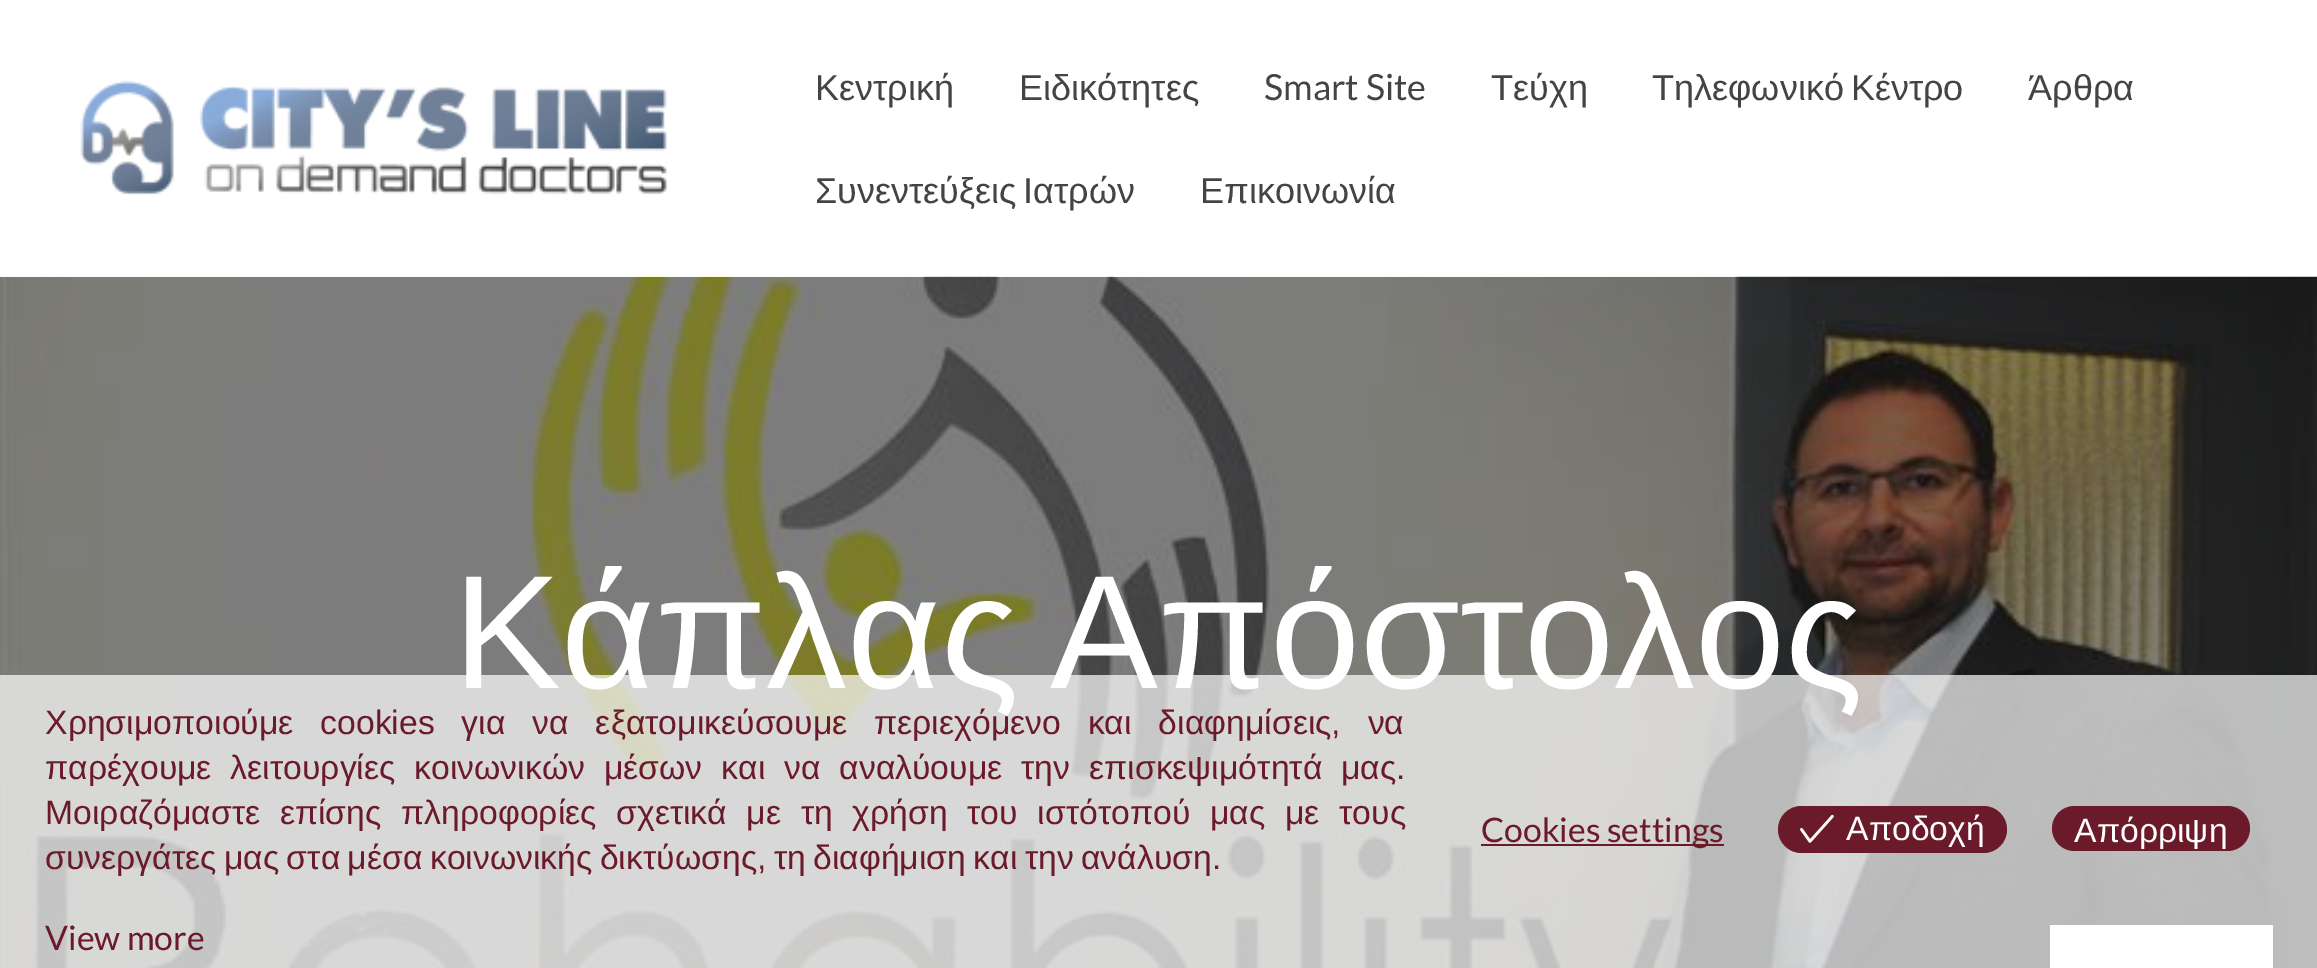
%!PS
<< /PageSize [2317 968] /PageUsesTransparency true >> setpagedevice
/rgb { dup -16 bitshift 255 div exch dup -8 bitshift 255 and 255 div exch 255 and 255 div setrgbcolor } def
/font { [ exch dup neg 0 0 3 -1 roll 0 0 ] selectfont } def
/text { moveto show } def
/alpha { dup .setfillconstantalpha .setstrokeconstantalpha } def
/roundrect { 5 dict begin { /r /h /w /y /x } { exch def } forall
  x r add y moveto x w add y 2 copy h add r arct x w add y h add x 1 index r arct
  x y h add x y r arct x y 2 copy exch w add exch r arct closepath end } def
/picture { 5 dict begin { /h /w /y /x /name } { exch def } forall
  gsave x y translate w h scale
  w h 8 [w 0 0 h 0 0] name (r) file false 3 colorimage grestore end } def
0 .pushpdf14devicefilter
0 968 translate 1 -1 scale
4 setmiterlimit
/s1 { /LiberationSans-Regular 36 font 16#444444 rgb } def
/s2 { /Lato-Regular 36 font 16#444444 rgb } def
/s3 { /Lato-Regular 33.75 font 16#6B1A2A rgb } def
/s4 { /LiberationSans-Regular 33.75 font 16#FFFFFF rgb } def
16#FFFFFF rgb
0 0 2317 968 rectfill
(pic1.raw) 80 80 587 115 picture
s1
(Κεντρική) 815 100 text
(Ειδικότητες) 1019 100 text
s2
(Smart Site) 1264 100 text
s1
(Τεύχη) 1491 100 text
1652 100 moveto -3 0 32 (Τηλεφωνικό Κέντρο) widthshow
(Άρθρα) 2028 100 text
815 203 moveto -3 0 32 (Συνεντεύξεις Ιατρών) widthshow
(Επικοινωνία) 1200 203 text
(pic2.raw) 0 276 2317 692 picture
/LiberationSans-Regular 162 font
16#FFFFFF rgb
453 688 moveto -14 0 32 (Κάπλας Απόστολος) widthshow
2050 925 223 43 rectfill
0.7 alpha
0 675 2317 293 rectfill
/LiberationSans-Regular 33.75 font
1 alpha
16#6B1A2A rgb
45 734 moveto 17.5 0 32 (Χρησιμοποιούμε cookies για να εξατομικεύσουμε περιεχόμενο και διαφημίσεις, να) widthshow
45 779 moveto 9.5 0 32 (παρέχουμε λειτουργίες κοινωνικών μέσων και να αναλύουμε την επισκεψιμότητά μας.) widthshow
45 824 moveto 10.25 0 32 (Μοιραζόμαστε επίσης πληροφορίες σχετικά με τη χρήση του ιστότοπού μας με τους) widthshow
45 869 moveto -2 0 32 (συνεργάτες μας στα μέσα κοινωνικής δικτύωσης, τη διαφήμιση και την ανάλυση.) widthshow
s3
(View more) 45 950 text
1481 844 243 2 rectfill
(Cookies settings) 1481 842 text
1778 806 229 47 23.5 roundrect fill
(pic3.raw) 1800 814 34 29 picture
s4
(Αποδοχή) 1846 840 text
16#6B1A2A rgb
2052 806 198 45 22.5 roundrect fill
s4
(Απόρριψη) 2074 842 text
.poppdf14devicefilter showpage
